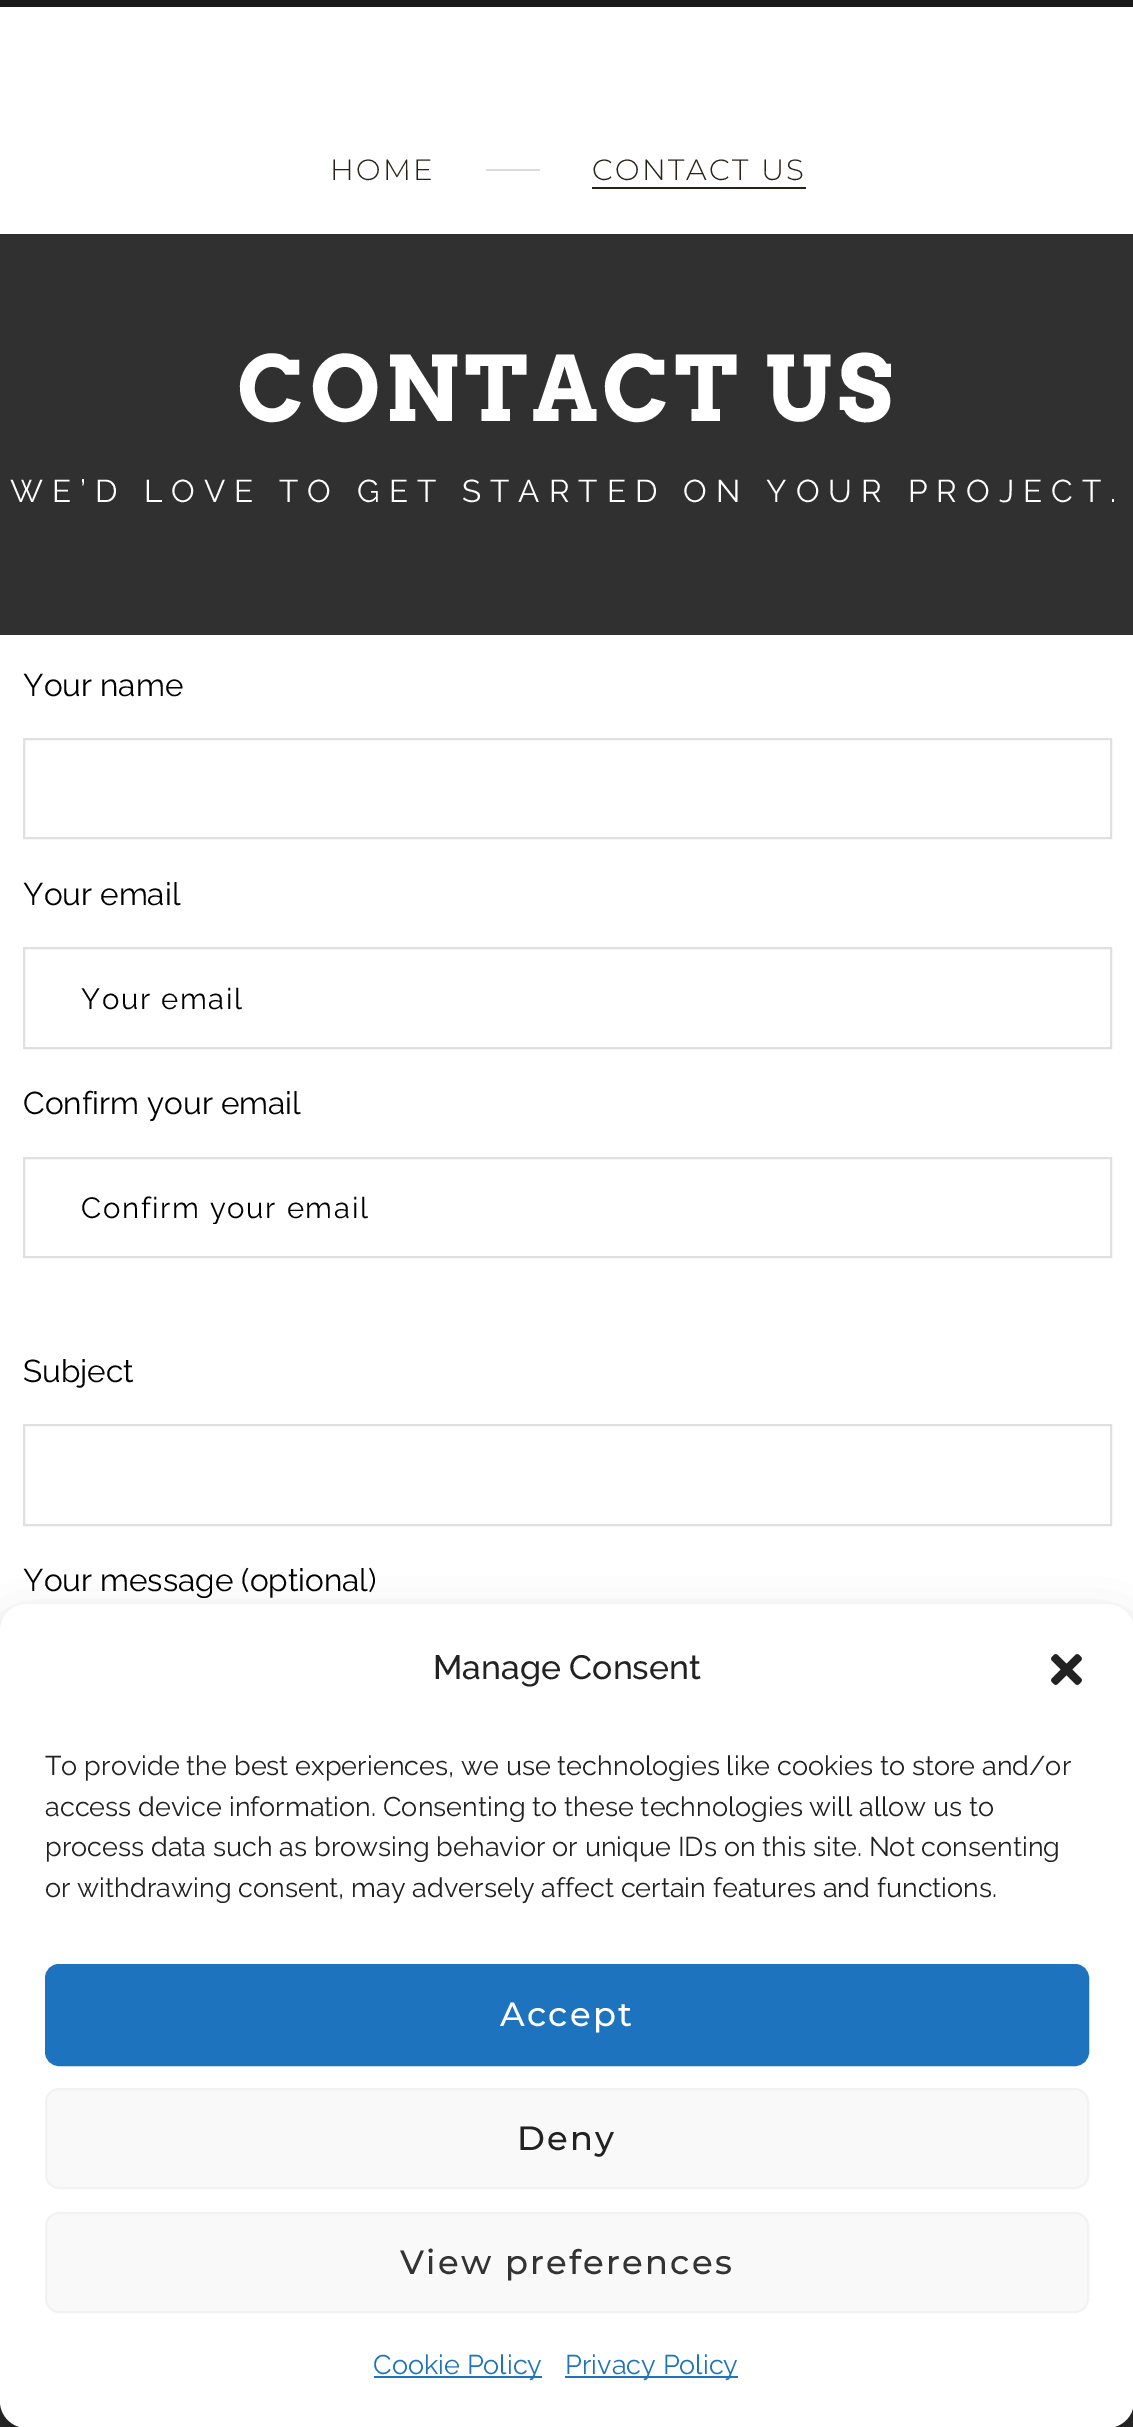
%!PS
<< /PageSize [1133 2427] /PageUsesTransparency true >> setpagedevice
/rgb { dup -16 bitshift 255 div exch dup -8 bitshift 255 and 255 div exch 255 and 255 div setrgbcolor } def
/font { [ exch dup neg 0 0 3 -1 roll 0 0 ] selectfont } def
/text { moveto show } def
/alpha { dup .setfillconstantalpha .setstrokeconstantalpha } def
/roundrect { 5 dict begin { /r /h /w /y /x } { exch def } forall
  x r add y moveto x w add y 2 copy h add r arct x w add y h add x 1 index r arct
  x y h add x y r arct x y 2 copy exch w add exch r arct closepath end } def
/shadow { 12 dict begin { /a /b /q /h /w /y /x } { exch def } forall gsave /was 0 def
  9 -2 -9 { dup b mul 4 div /e exch def 1 sub .425 mul 2.718 exch exp 1 add a .99 .min exch div /now exch def
    1 1 now sub 1 was sub div sub alpha /was now def
    w h .min e 2 mul add 0 gt { x e sub y e sub w e 2 mul add h e 2 mul add
      q e add b .6 mul add w h .min 2 div e add .min 0 .max roundrect fill } if } for grestore end } def
/picture { 5 dict begin { /h /w /y /x /name } { exch def } forall
  gsave x y translate w h scale
  w h 8 [w 0 0 h 0 0] name (r) file false 3 colorimage grestore end } def
0 .pushpdf14devicefilter
0 2427 translate 1 -1 scale
4 setmiterlimit
/s1 { /Raleway-Thin 31.5 font 16#000000 rgb } def
/s2 { /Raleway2-Thin 33.75 font 16#222222 rgb } def
/s3 { /Raleway-Thin 27 font 16#222222 rgb } def
/s4 { /Raleway-Thin 27 font 16#1E73BE rgb } def
16#FFFFFF rgb
0 0 1133 2427 rectfill
16#1A1A1A rgb
0 0 1133 7 rectfill
/Montserrat-Thin 29.25 font
16#282219 rgb
330 180 moveto 2.25 0 (HOME) ashow
16#DCDCDC rgb
486 169 54 2 rectfill
16#282219 rgb
592 180 moveto 2.25 0 (CONTACT US) ashow
592 187 214 2 rectfill
16#303030 rgb
0 234 1133 401 rectfill
/Arvo-Bold 90 font
16#FFFFFF rgb
237 421 moveto 4.5 0 (CONTACT US) ashow
/Raleway-Thin 31.5 font
10 502 moveto 9 0 (WE’D LOVE TO GET STARTED ON YOUR PROJECT.) ashow
s1
(Your name) 23 696 text
16#E0E0E0 rgb
2 setlinewidth
24 739 1087 99 rectstroke
s1
(Your email) 23 905 text
16#E0E0E0 rgb
24 948 1087 100 rectstroke
/Raleway-Thin 29.25 font
16#000000 rgb
81 1009 moveto 1.7 0 (Your email) ashow
s1
(Confirm your email) 23 1114 text
16#E0E0E0 rgb
24 1158 1087 99 rectstroke
gsave
81 1190 972 34 rectclip
/Raleway-Thin 29.25 font
16#000000 rgb
81 1218 moveto 1.7 0 (Confirm your email) ashow
grestore
s1
(Subject) 23 1382 text
16#E0E0E0 rgb
24 1425 1087 100 rectstroke
s1
(Your message \(optional\)) 23 1591 text
16#2E2E2E rgb
0 2401 1133 26 rectfill
16#000000 rgb
0 1618 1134 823 27 7 0.23 shadow
0 1627 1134 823 27 22.5 0.19 shadow
16#FFFFFF rgb
0 1604 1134 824 27 roundrect fill
s2
(Manage Consent) 433 1679 text
(pic1.raw) 1051 1654 31 31 picture
s3
(To provide the best experiences, we use technologies like cookies to store and/or) 45 1775 text
(access device information. Consenting to these technologies will allow us to) 45 1816 text
(process data such as browsing behavior or unique IDs on this site. Not consenting) 45 1856 text
(or withdrawing consent, may adversely affect certain features and functions.) 45 1897 text
16#1E73BE rgb
46 1965 1042 100 13 roundrect gsave fill grestore
stroke
/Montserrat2-Thin 33.75 font
16#FFFFFF rgb
500 2026 moveto 2.25 0 (Accept) ashow
16#F9F9F9 rgb
46 2089 1042 99 13 roundrect gsave fill grestore
16#F2F2F2 rgb
stroke
16#222222 rgb
517 2150 moveto 2.25 0 (Deny) ashow
16#F9F9F9 rgb
46 2213 1042 99 13 roundrect gsave fill grestore
16#F2F2F2 rgb
stroke
16#333333 rgb
400 2274 moveto 2.25 0 (View preferences) ashow
16#1E73BE rgb
374 2376 168 2 rectfill
s4
(Cookie Policy) 373 2374 text
565 2376 173 2 rectfill
(Privacy Policy) 565 2374 text
.poppdf14devicefilter showpage
